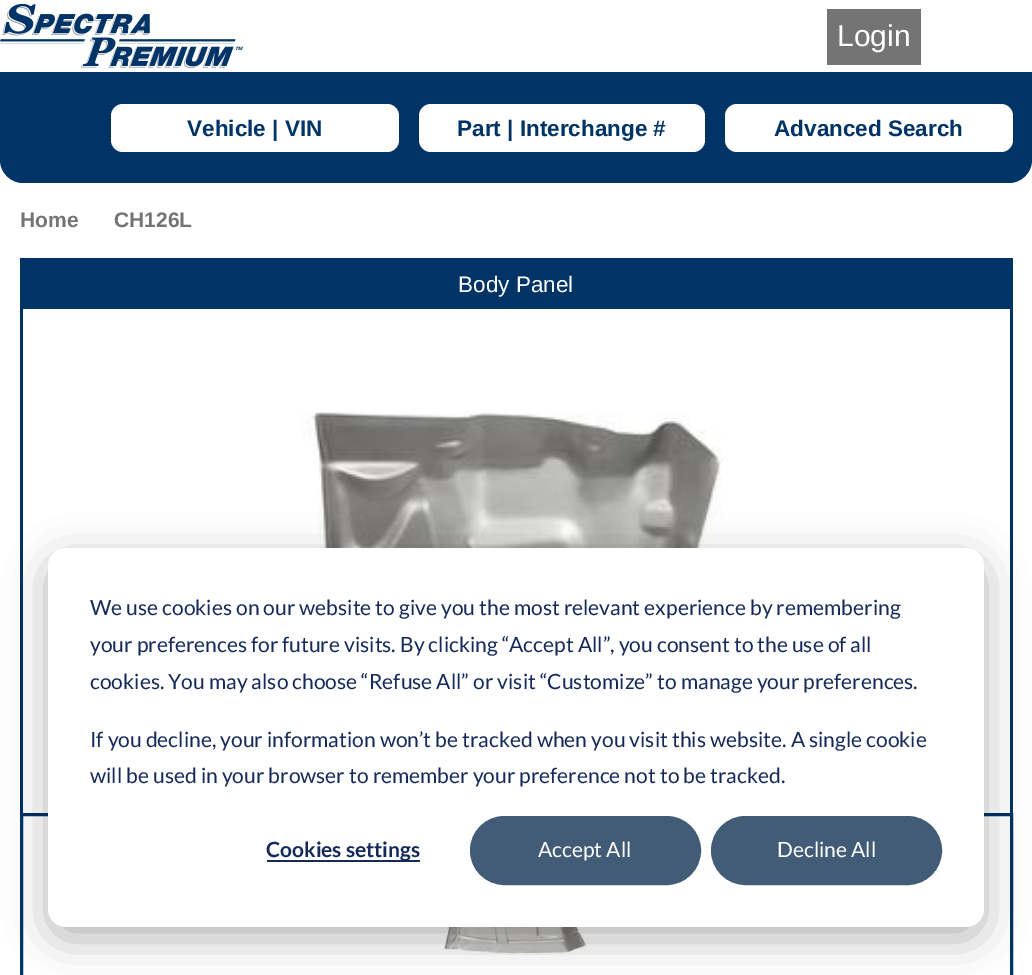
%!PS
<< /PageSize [1032 975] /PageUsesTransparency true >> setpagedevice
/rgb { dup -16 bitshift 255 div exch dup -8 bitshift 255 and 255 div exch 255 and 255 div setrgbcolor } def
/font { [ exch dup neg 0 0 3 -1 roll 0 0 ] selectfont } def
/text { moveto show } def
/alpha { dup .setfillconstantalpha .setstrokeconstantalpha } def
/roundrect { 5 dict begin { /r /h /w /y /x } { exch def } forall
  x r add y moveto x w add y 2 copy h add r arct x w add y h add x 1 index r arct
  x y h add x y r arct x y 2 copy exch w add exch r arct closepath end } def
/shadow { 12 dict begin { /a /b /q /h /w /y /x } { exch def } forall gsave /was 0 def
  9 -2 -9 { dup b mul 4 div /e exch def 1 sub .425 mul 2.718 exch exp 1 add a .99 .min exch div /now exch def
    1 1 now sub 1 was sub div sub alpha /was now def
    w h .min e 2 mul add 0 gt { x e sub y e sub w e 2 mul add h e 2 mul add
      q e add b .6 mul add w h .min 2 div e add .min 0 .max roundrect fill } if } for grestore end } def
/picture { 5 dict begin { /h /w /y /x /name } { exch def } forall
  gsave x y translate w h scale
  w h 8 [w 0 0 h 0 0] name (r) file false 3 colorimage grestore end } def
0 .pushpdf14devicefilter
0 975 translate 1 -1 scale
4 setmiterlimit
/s1 { /LiberationSans-Regular 30 font 16#FFFFFF rgb } def
/s2 { /LiberationSans-Bold 22.5 font 16#003366 rgb } def
/s3 { /LiberationSans-Bold 21 font 16#747474 rgb } def
/s4 { /LiberationSans-Regular 22.5 font 16#FFFFFF rgb } def
/s5 { /Lato-Regular 21 font 16#15295A rgb } def
/s6 { /Lato-Bold 21 font 16#15295A rgb } def
/s7 { /Lato-Regular 21 font 16#FFFFFF rgb } def
16#FFFFFF rgb
0 0 1032 975 rectfill
(pic1.raw) 0 3 243 66 picture
16#747474 rgb
827 9 94 56 rectfill
s1
(Login) 837 46 text
16#003366 rgb
0 72 moveto 1032 72 lineto 1032 160 lineto 1032 172.5 1021.5 183 1009 183 curveto 23 183 lineto 10.5 183 0 172.5 0 160 curveto closepath fill
16#FFFFFF rgb
111 104 288 48 12 roundrect fill
s2
(Vehicle | VIN) 187 136 text
16#FFFFFF rgb
419 104 286 48 12 roundrect fill
s2
(Part | Interchange #) 457 136 text
16#FFFFFF rgb
725 104 288 48 12 roundrect fill
s2
(Advanced Search) 774 136 text
s3
(Home) 20 227 text
(CH126L) 114 227 text
16#003366 rgb
20 258 993 51 rectfill
s4
(Body Panel) 458 292 text
16#003366 rgb
1010 309 3 504 rectfill
20 309 3 504 rectfill
(pic2.raw) 301 412 437 136 picture
3 setlinewidth
21.5 814.5 990 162 rectstroke
(pic3.raw) 444 927 144 28 picture
16#000000 rgb
48 560 936 379 18 21 0.28 shadow
16#FFFFFF rgb
48 548 936 379 18 roundrect fill
s5
(We use cookies on our website to give you the most relevant experience by remembering) 90 615 text
(your preferences for future visits. By clicking “Accept All”, you consent to the use of all) 90 652 text
(cookies. You may also choose “Refuse All” or visit “Customize” to manage your preferences.) 90 689 text
(If you decline, your information won’t be tracked when you visit this website. A single cookie) 90 747 text
(will be used in your browser to remember your preference not to be tracked.) 90 783 text
267 860 153 2 rectfill
s6
(Cookies settings) 266 857 text
16#425B76 rgb
471 817 229 67 33.5 roundrect gsave fill grestore
2 setlinewidth
stroke
s7
(Accept All) 538 857 text
16#425B76 rgb
712 817 229 67 33.5 roundrect gsave fill grestore
stroke
s7
(Decline All) 777 857 text
.poppdf14devicefilter showpage
